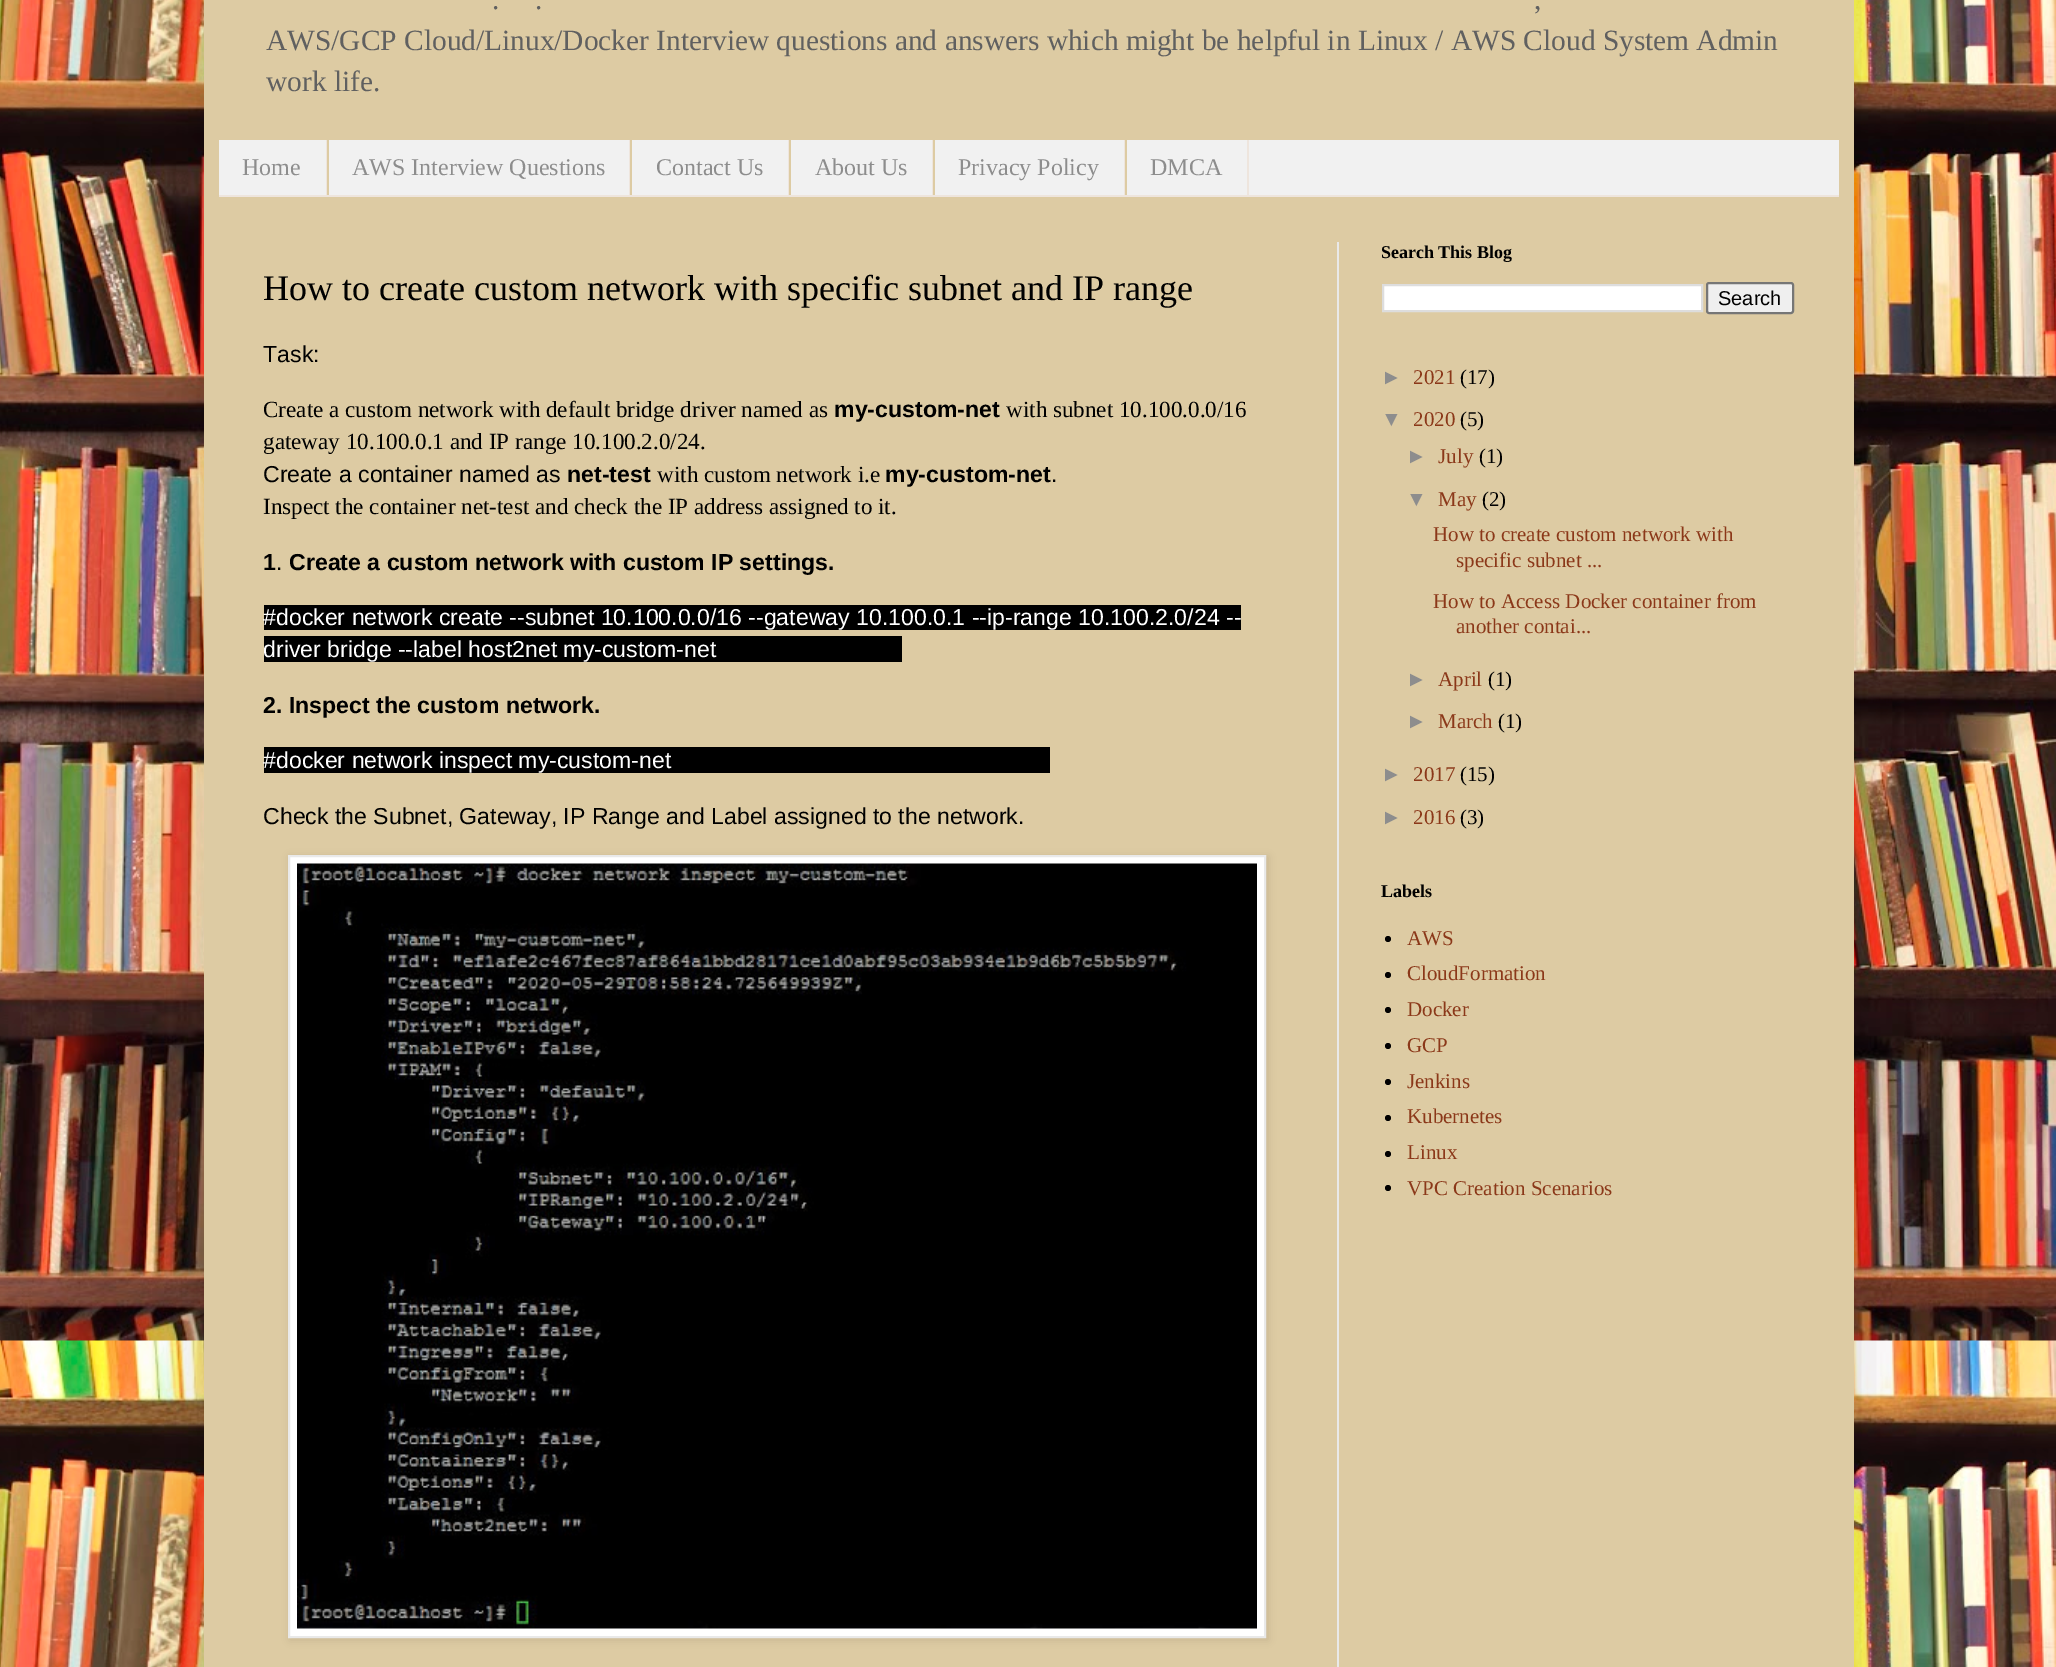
%!PS
<< /PageSize [2056 1667] /PageUsesTransparency true >> setpagedevice
/rgb { dup -16 bitshift 255 div exch dup -8 bitshift 255 and 255 div exch 255 and 255 div setrgbcolor } def
/font { [ exch dup neg 0 0 3 -1 roll 0 0 ] selectfont } def
/text { moveto show } def
/alpha { dup .setfillconstantalpha .setstrokeconstantalpha } def
/circle { newpath 0 360 arc closepath } def
/roundrect { 5 dict begin { /r /h /w /y /x } { exch def } forall
  x r add y moveto x w add y 2 copy h add r arct x w add y h add x 1 index r arct
  x y h add x y r arct x y 2 copy exch w add exch r arct closepath end } def
/shadow { 12 dict begin { /a /b /q /h /w /y /x } { exch def } forall gsave /was 0 def
  9 -2 -9 { dup b mul 4 div /e exch def 1 sub .425 mul 2.718 exch exp 1 add a .99 .min exch div /now exch def
    1 1 now sub 1 was sub div sub alpha /was now def
    w h .min e 2 mul add 0 gt { x e sub y e sub w e 2 mul add h e 2 mul add
      q e add b .6 mul add w h .min 2 div e add .min 0 .max roundrect fill } if } for grestore end } def
/picture { 5 dict begin { /h /w /y /x /name } { exch def } forall
  gsave x y translate w h scale
  w h 8 [w 0 0 h 0 0] name (r) file false 3 colorimage grestore end } def
0 .pushpdf14devicefilter
0 1667 translate 1 -1 scale
4 setmiterlimit
/s1 { /LiberationSerif-Regular 29.4 font 16#606060 rgb } def
/s2 { /LiberationSerif-Regular 24 font 16#8D8D8D rgb } def
/s3 { /LiberationSerif-Regular 36 font 16#000000 rgb } def
/s4 { /LiberationSans-Regular 23.1 font 16#000000 rgb } def
/s5 { /LiberationSerif-Regular 23.1 font 16#000000 rgb } def
/s6 { /LiberationSans-Bold 23.1 font 16#000000 rgb } def
/s7 { /LiberationSans-Regular 23.1 font 16#FFFFFF rgb } def
/s8 { /LiberationSerif-Bold 18 font 16#000000 rgb } def
/s9 { /LiberationSans-Regular 20 font 16#000000 rgb } def
/s10 { /LiberationSans-Regular 21 font 16#8D8D8D rgb } def
/s11 { /LiberationSerif-Regular 21 font 16#8B3819 rgb } def
/s12 { /LiberationSerif-Regular 21 font 16#000000 rgb } def
16#FFFFFF rgb
0 0 2056 1667 rectfill
(pic1.raw) 0 0 2056 1667 picture
16#000000 rgb
204 -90 1650 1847 0 30 0.15 shadow
16#DDCBA3 rgb
204 0 1650 1667 rectfill
s1
(.) 492 9 text
(.) 535 9 text
(,) 1534 9 text
(AWS/GCP Cloud/Linux/Docker Interview questions and answers which might be helpful in Linux / AWS Cloud System Admin) 266 50 text
(work life.) 266 91 text
16#F1F1F1 rgb
219 140 1620 55 rectfill
16#EEE5DD rgb
219 195 1620 2 rectfill
326 140 1 55 rectfill
s2
(Home) 242 175 text
16#EEE5DD rgb
629 140 1 55 rectfill
16#DDCBA3 rgb
327 140 2 55 rectfill
s2
(AWS Interview Questions) 352 175 text
16#EEE5DD rgb
788 140 1 55 rectfill
16#DDCBA3 rgb
630 140 2 55 rectfill
s2
(Contact Us) 656 175 text
16#EEE5DD rgb
932 140 1 55 rectfill
16#DDCBA3 rgb
789 140 2 55 rectfill
s2
(About Us) 815 175 text
16#EEE5DD rgb
1124 140 1 55 rectfill
16#DDCBA3 rgb
933 140 2 55 rectfill
s2
(Privacy Policy) 958 175 text
16#EEE5DD rgb
1247 140 2 55 rectfill
16#DDCBA3 rgb
1125 140 2 55 rectfill
s2
(DMCA) 1150 175 text
16#E9E9E9 rgb
1337 242 2 1425 rectfill
s3
(How to create custom network with specific subnet and IP range) 263 300 text
s4
(Task:) 263 362 text
s5
(Create a custom network with default bridge driver named as) 263 417 text
s6
(my-custom-net) 834 417 text
s5
(with subnet 10.100.0.0/16) 1006 417 text
(gateway 10.100.0.1 and IP range 10.100.2.0/24.) 263 449 text
s4
(Create a container named as) 263 482 text
s6
(net-test) 567 482 text
s5
(with custom network i.e) 657 482 text
s6
(my-custom-net) 885 482 text
s4
(.) 1051 482 text
s5
(Inspect the container net-test and check the IP address assigned to it.) 263 514 text
s6
(1) 263 570 text
s4
(.) 276 570 text
s6
(Create a custom network with custom IP settings.) 289 570 text
264 605 977 25 rectfill
s7
(#docker network create --subnet 10.100.0.0/16 --gateway 10.100.0.1 --ip-range 10.100.2.0/24 --) 263 625 text
16#000000 rgb
264 636 638 26 rectfill
s7
(driver bridge --label host2net my-custom-net) 263 657 text
s6
(2. Inspect the custom network.) 263 713 text
264 747 786 26 rectfill
s7
(#docker network inspect my-custom-net) 263 768 text
s4
(Check the Subnet, Gateway, IP Range and Label assigned to the network.) 263 824 text
290 857 978 783 0 4 0.1 shadow
16#FFFFFF rgb
289 856 moveto 1265 856 lineto 1265 1637 lineto 289 1637 lineto closepath gsave fill grestore
16#E9E9E9 rgb
2 setlinewidth
stroke
(pic2.raw) 297 863 960 766 picture
s8
(Search This Blog) 1381 258 text
16#FFFFFF rgb
1383 285 moveto 1702 285 lineto 1702 311 lineto 1383 311 lineto closepath gsave fill grestore
16#DDDDDD rgb
stroke
16#EFEFEF rgb
1707 283 86 30 2 roundrect gsave fill grestore
16#767676 rgb
stroke
s9
(Search) 1718 305 text
s10
(►) 1381 384 text
s11
(2021) 1413 384 text
s12
(\(17\)) 1460 384 text
s10
(▼) 1381 426 text
s11
(2020) 1413 426 text
s12
(\(5\)) 1460 426 text
s10
(►) 1406 463 text
s11
(July) 1438 463 text
s12
(\(1\)) 1479 463 text
s10
(▼) 1406 506 text
s11
(May) 1438 506 text
s12
(\(2\)) 1482 506 text
s11
(How to create custom network with) 1433 541 text
(specific subnet ...) 1456 567 text
(How to Access Docker container from) 1433 608 text
(another contai...) 1456 633 text
s10
(►) 1406 686 text
s11
(April) 1438 686 text
s12
(\(1\)) 1488 686 text
s10
(►) 1406 728 text
s11
(March) 1438 728 text
s12
(\(1\)) 1498 728 text
s10
(►) 1381 781 text
s11
(2017) 1413 781 text
s12
(\(15\)) 1460 781 text
s10
(►) 1381 824 text
s11
(2016) 1413 824 text
s12
(\(3\)) 1460 824 text
s8
(Labels) 1381 897 text
1388 939 3 circle fill
s11
(AWS) 1407 945 text
16#000000 rgb
1388 975 3 circle fill
s11
(CloudFormation) 1407 980 text
16#000000 rgb
1388 1010 3 circle fill
s11
(Docker) 1407 1016 text
16#000000 rgb
1388 1046 3 circle fill
s11
(GCP) 1407 1052 text
16#000000 rgb
1388 1082 3 circle fill
s11
(Jenkins) 1407 1088 text
16#000000 rgb
1388 1118 3 circle fill
s11
(Kubernetes) 1407 1123 text
16#000000 rgb
1388 1154 3 circle fill
s11
(Linux) 1407 1159 text
16#000000 rgb
1388 1188 3 circle fill
s11
(VPC Creation Scenarios) 1407 1195 text
.poppdf14devicefilter showpage
